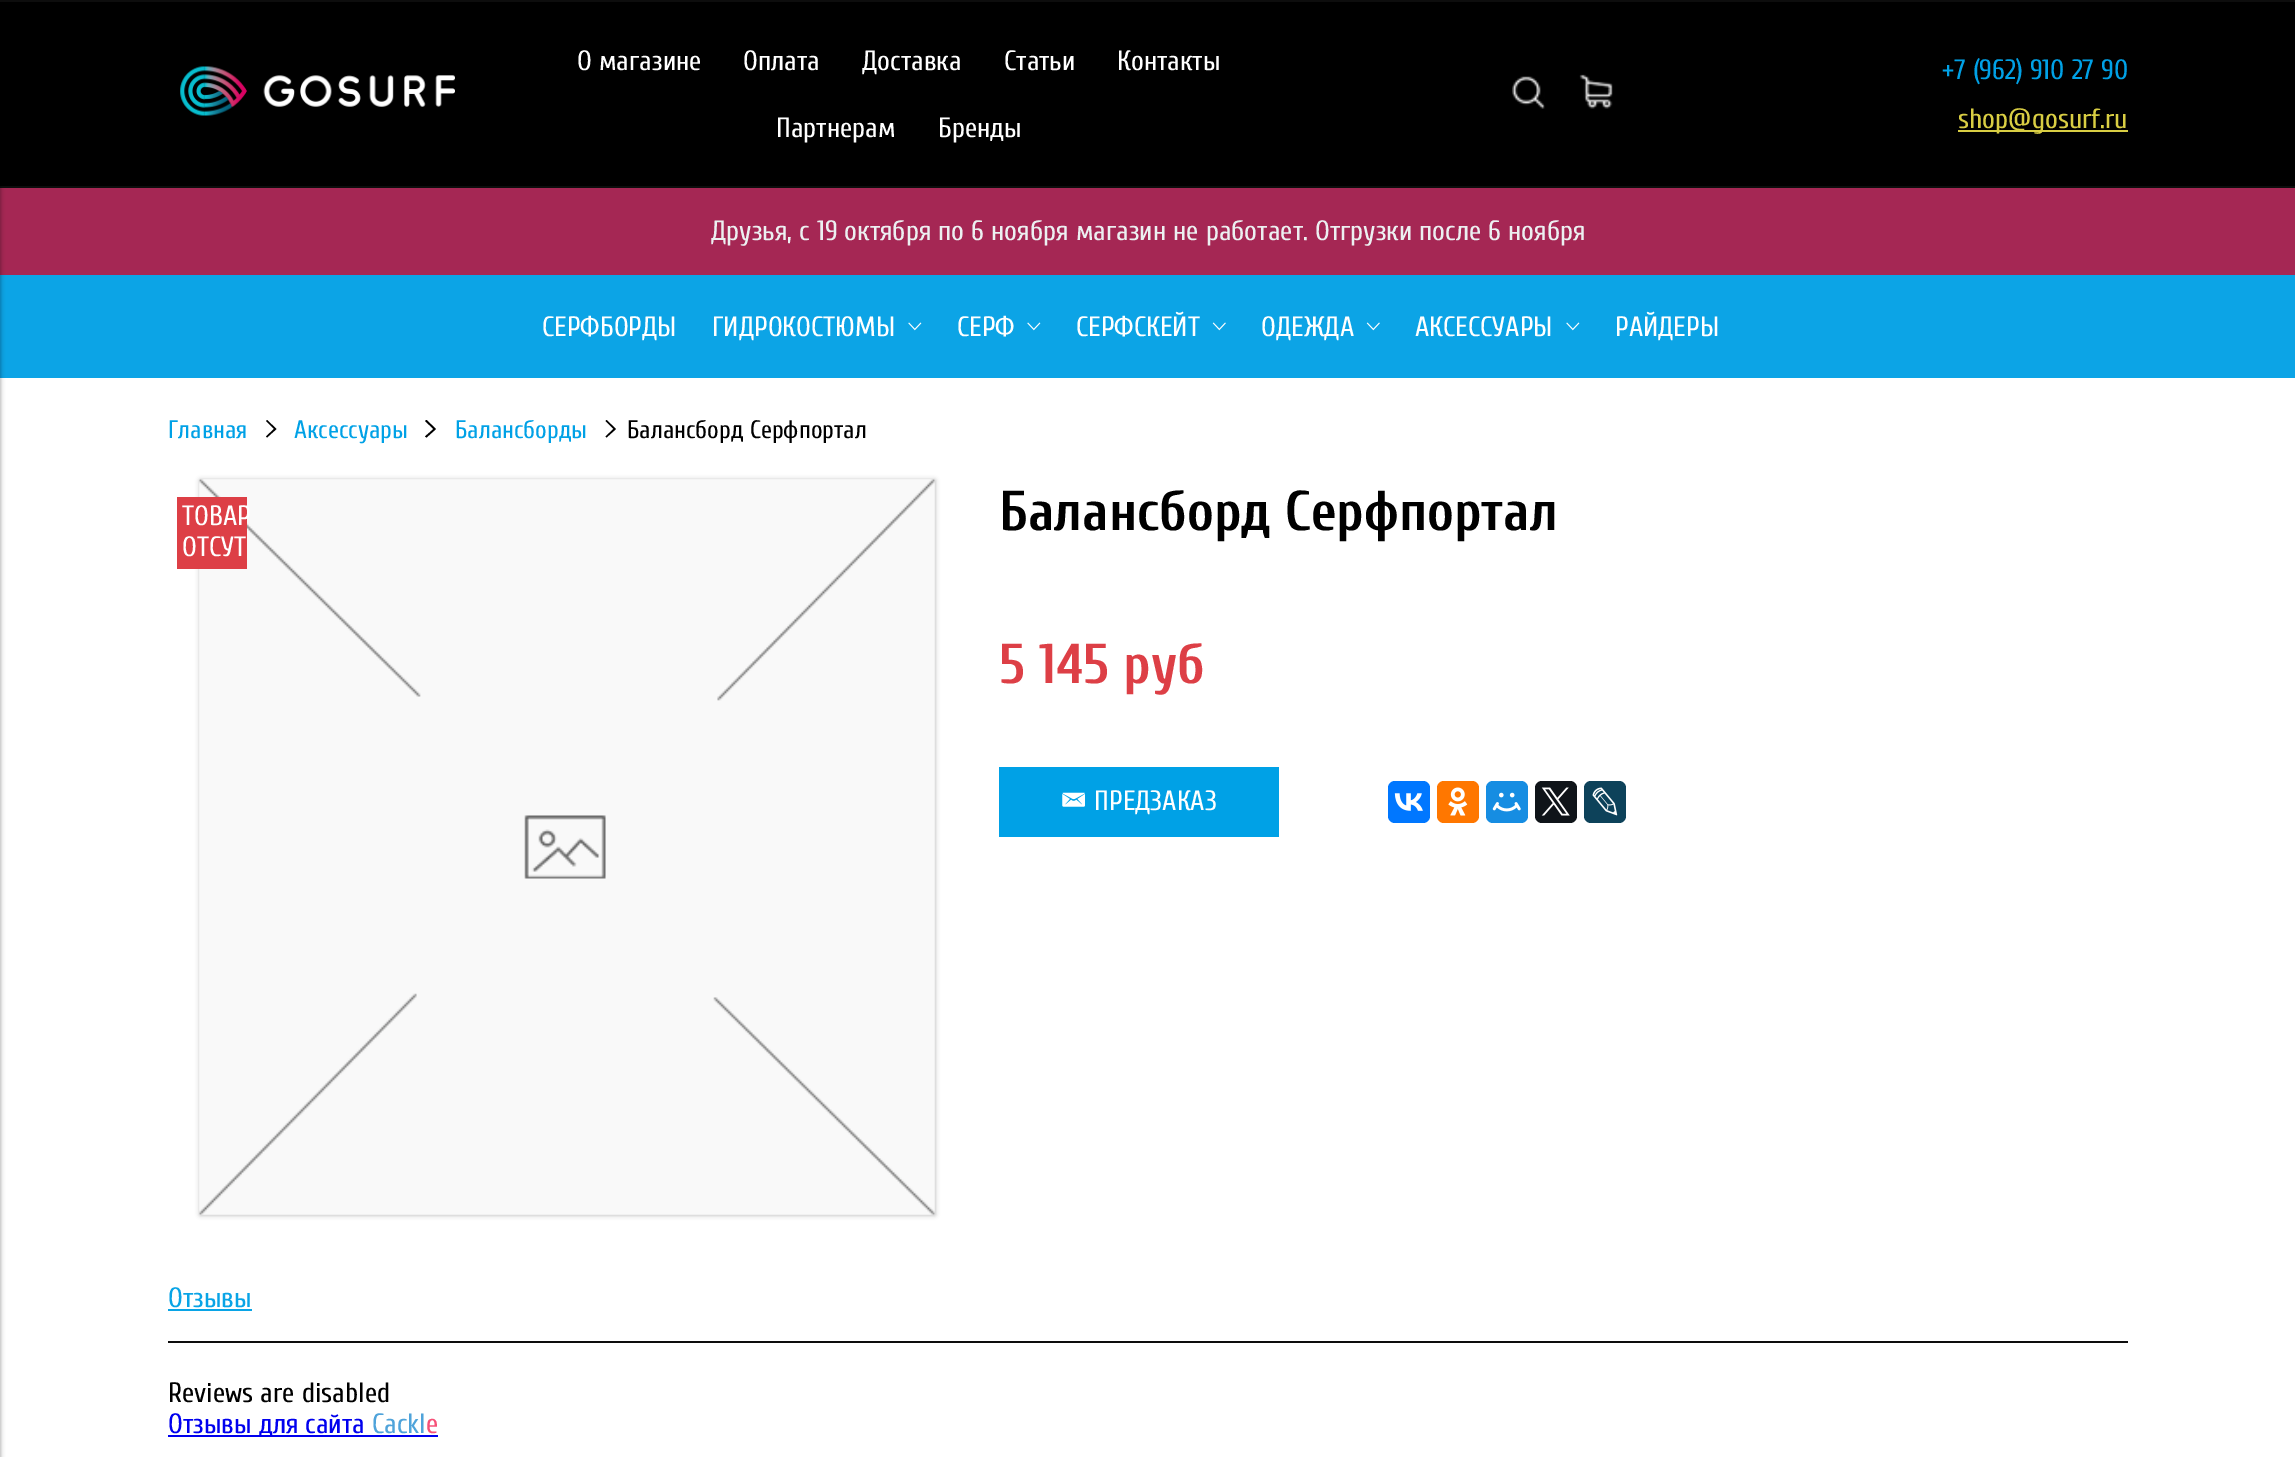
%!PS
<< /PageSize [2295 1457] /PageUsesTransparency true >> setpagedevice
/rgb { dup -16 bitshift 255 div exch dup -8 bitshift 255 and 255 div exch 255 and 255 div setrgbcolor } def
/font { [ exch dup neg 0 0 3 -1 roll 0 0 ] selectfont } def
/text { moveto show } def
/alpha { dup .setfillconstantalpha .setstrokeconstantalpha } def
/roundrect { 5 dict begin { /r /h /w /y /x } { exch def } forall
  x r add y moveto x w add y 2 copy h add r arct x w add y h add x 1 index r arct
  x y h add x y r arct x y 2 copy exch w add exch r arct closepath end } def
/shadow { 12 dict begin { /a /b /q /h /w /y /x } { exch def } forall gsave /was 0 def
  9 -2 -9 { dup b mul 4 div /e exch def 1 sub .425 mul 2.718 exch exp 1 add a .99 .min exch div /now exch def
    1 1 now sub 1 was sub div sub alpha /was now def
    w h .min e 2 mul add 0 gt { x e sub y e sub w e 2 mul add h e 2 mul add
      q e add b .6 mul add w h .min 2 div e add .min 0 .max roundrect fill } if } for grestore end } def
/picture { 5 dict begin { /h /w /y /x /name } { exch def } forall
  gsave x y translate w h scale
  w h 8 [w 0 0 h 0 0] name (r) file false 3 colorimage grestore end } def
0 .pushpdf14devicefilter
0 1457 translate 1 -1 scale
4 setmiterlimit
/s1 { /Cuprum-Regular 28 font 16#FFFFFF rgb } def
/s2 { /Cuprum-Regular 28 font 16#00A1E6 rgb } def
/s3 { /Cuprum-Regular 28 font 16#D9CE43 rgb } def
/s4 { /Cuprum-Regular 28 font 16#ECF0F1 rgb } def
/s5 { /Cuprum-Regular 25.25 font 16#00A1E6 rgb } def
/s6 { /Cuprum-Regular 25.25 font 16#000000 rgb } def
/s7 { /Cuprum-Bold 56 font 16#000000 rgb } def
/s8 { /Cuprum-Bold 56 font 16#DD3F46 rgb } def
/s9 { /Cuprum-Regular 28 font 16#09A4E6 rgb } def
/s10 { /Cuprum-Regular 28 font 16#000000 rgb } def
/s11 { /Cuprum-Regular 28 font 16#0000EE rgb } def
/s12 { /Cuprum-Regular 28 font 16#4FA3DA rgb } def
/s13 { /Cuprum-Regular 28 font 16#F65077 rgb } def
16#FFFFFF rgb
0 0 2295 1457 rectfill
16#000000 rgb
0 2 2295 184 rectfill
16#0D0D0D rgb
0 186 2295 2 rectfill
16#A52754 rgb
0 188 2295 87 rectfill
16#0CA4E6 rgb
0 275 2295 103 rectfill
16#000000 rgb
-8 93 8 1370 0 2.5 0.4 shadow
16#0D0D0D rgb
0 0 2295 2 rectfill
(pic1.raw) 180 66 275 50 picture
s1
(О магазине) 577 70 text
(Оплата) 743 70 text
(Доставка) 862 70 text
(Статьи) 1004 70 text
(Контакты) 1117 70 text
(Партнерам) 776 137 text
(Бренды) 938 137 text
(pic2.raw) 1512 76 33 33 picture
(pic3.raw) 1579 74 34 35 picture
s2
(+7 \(962\) 910 27 90) 1942 79 text
16#D9CE43 rgb
1958 130 170 2 rectfill
(shop@gosurf.ru) 1958 128 text
s4
(Друзья, с 19 октября по 6 ноября магазин не работает. Отгрузки после 6 ноября) 711 240 text
s1
(СЕРФБОРДЫ) 542 336 text
(ГИДРОКОСТЮМЫ) 712 336 text
(pic4.raw) 908 322 14 9 picture
(СЕРФ) 957 336 text
(pic4.raw) 1027 322 14 9 picture
(СЕРФСКЕЙТ) 1076 336 text
(pic5.raw) 1212 322 14 9 picture
(ОДЕЖДА) 1261 336 text
(pic5.raw) 1366 322 14 9 picture
(АКСЕССУАРЫ) 1415 336 text
(pic4.raw) 1566 322 14 9 picture
(РАЙДЕРЫ) 1615 336 text
s5
(Главная) 168 438 text
16#000000 rgb
266 421 moveto 267 420 lineto 276.5 429 lineto 267 437.5 lineto 266 436.5 lineto 274 429 lineto closepath fill
s5
(Аксессуары) 294 438 text
16#000000 rgb
425 421 moveto 426.5 420 lineto 436 429 lineto 426.5 437.5 lineto 425 436.5 lineto 433.5 429 lineto closepath fill
s5
(Балансборды) 455 438 text
16#000000 rgb
605.5 421 moveto 606.5 420 lineto 616 429 lineto 606.5 437.5 lineto 605.5 436.5 lineto 613.5 429 lineto closepath fill
(Балансборд Серфпортал) 627 438 text
200 480 735 735 0 2.5 0.3 shadow
(pic6.raw) 199 479 736 736 picture
16#DD3F46 rgb
177 497 70 72 rectfill
s1
(ТОВАР) 182 525 text
(ОТСУТ) 182 556 text
s7
(Балансборд Серфпортал) 999 530 text
s8
(5 145 руб) 999 683 text
16#00A1E6 rgb
999 767 280 70 rectfill
(pic7.raw) 1062 792 23 15 picture
s1
(ПРЕДЗАКАЗ) 1094 810 text
16#0077FF rgb
1388 781 42 42 7 roundrect fill
(pic8.raw) 1394 793 29 18 picture
16#FF7700 rgb
1437 781 42 42 7 roundrect fill
(pic9.raw) 1448 787 20 29 picture
16#168DE2 rgb
1486 781 42 42 7 roundrect fill
(pic10.raw) 1492 792 29 20 picture
16#0F1419 rgb
1535 781 42 42 7 roundrect fill
(pic11.raw) 1541 787 29 29 picture
16#0D425A rgb
1584 781 42 42 7 roundrect fill
(pic12.raw) 1592 787 26 29 picture
16#0D0D0D rgb
168 1341 1960 2 rectfill
s9
(Отзывы) 168 1307 text
168 1309 84 2 rectfill
s10
(Reviews are disabled) 168 1402 text
16#0000EE rgb
168 1435 270 2 rectfill
(Отзывы для сайта) 168 1433 text
s12
(Cackl) 372 1433 text
s13
(e) 426 1433 text
.poppdf14devicefilter showpage
